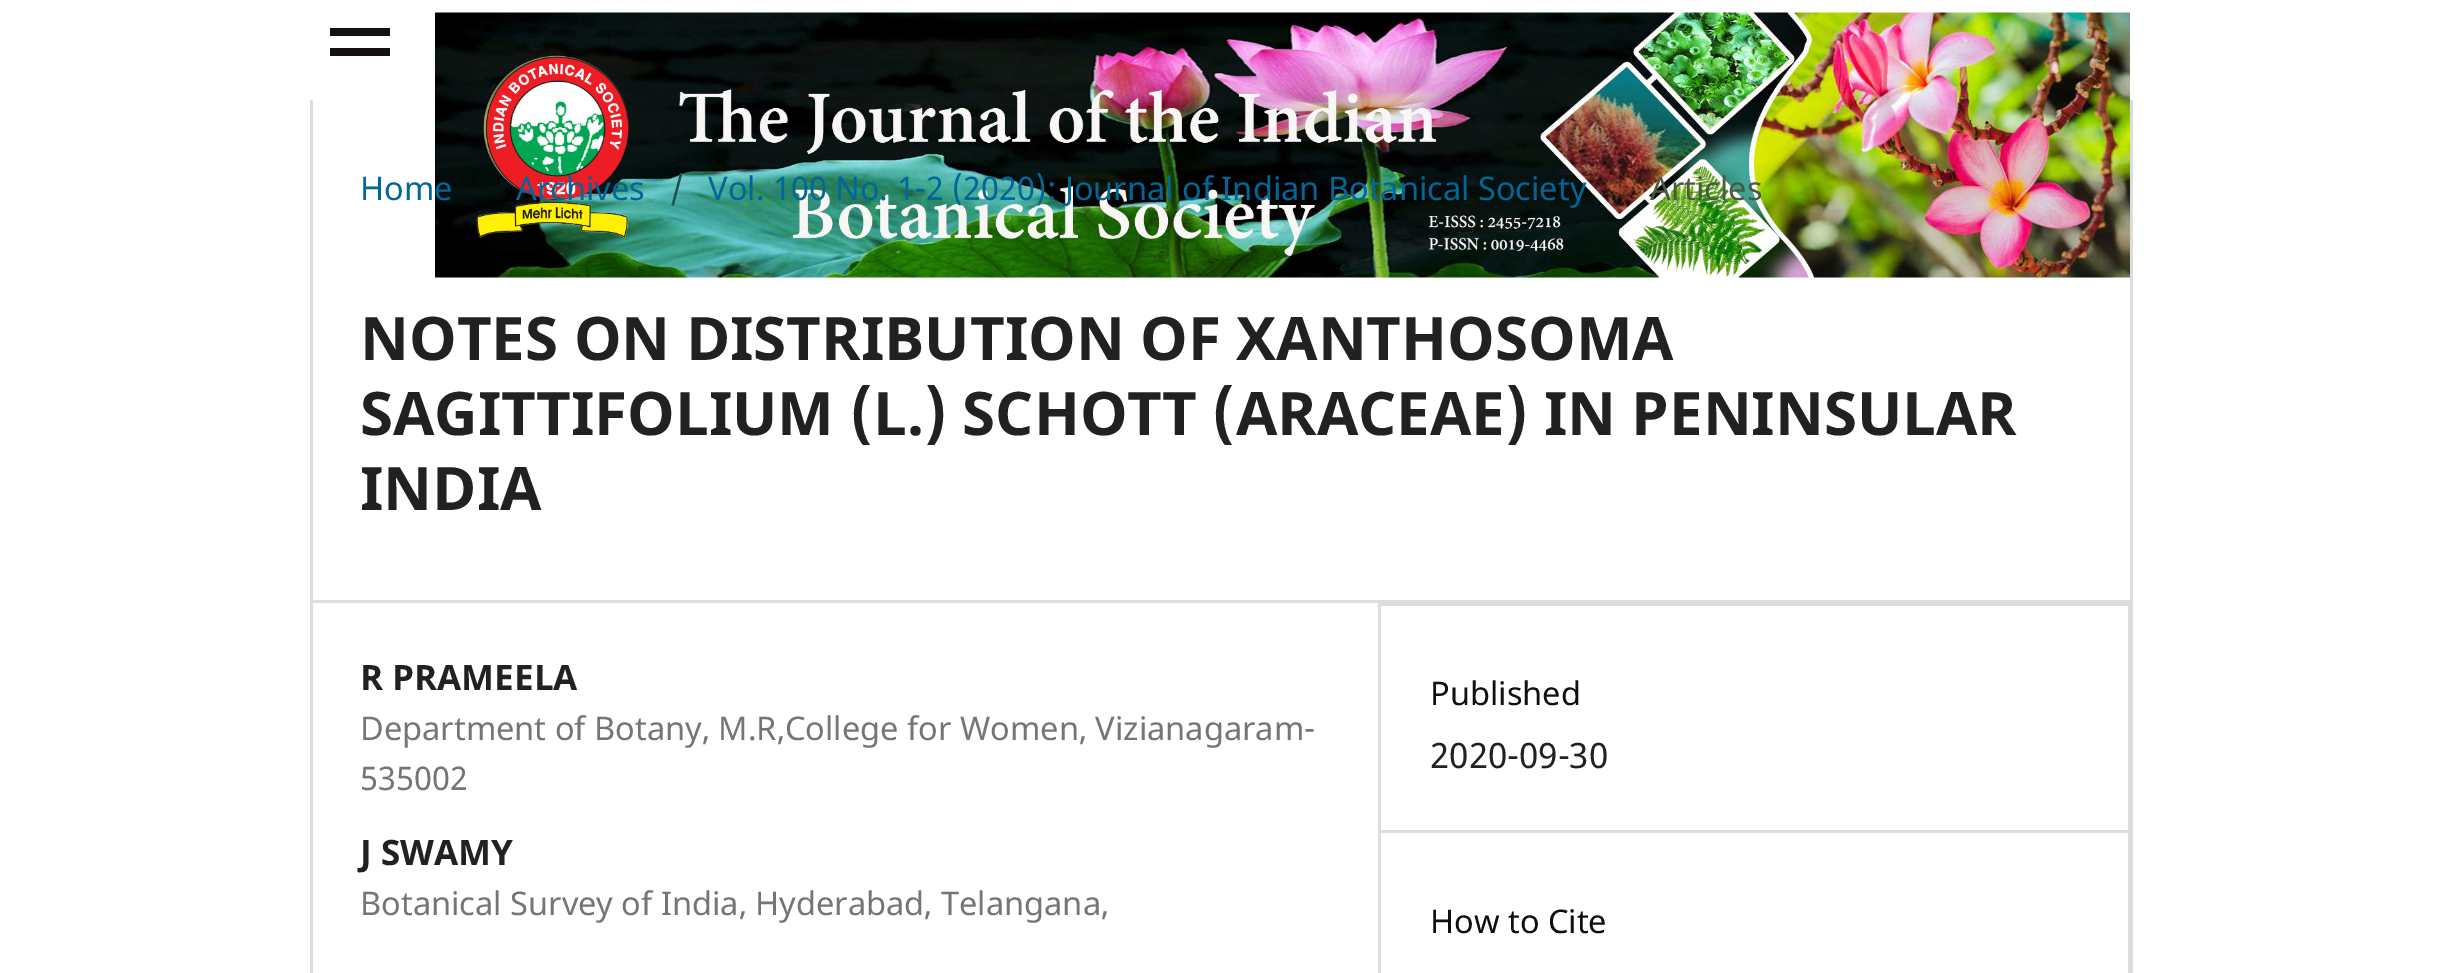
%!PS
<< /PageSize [2439 973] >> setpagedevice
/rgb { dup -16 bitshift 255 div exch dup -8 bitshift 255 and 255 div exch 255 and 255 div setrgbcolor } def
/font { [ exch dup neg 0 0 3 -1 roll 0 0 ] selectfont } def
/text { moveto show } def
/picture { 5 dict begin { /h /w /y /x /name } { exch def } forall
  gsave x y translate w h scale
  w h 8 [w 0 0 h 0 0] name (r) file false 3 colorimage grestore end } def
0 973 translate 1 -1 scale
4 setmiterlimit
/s1 { /NotoSans-Regular 32.55 font 16#006798 rgb } def
/s2 { /NotoSans-Regular 32.55 font 16#254F4D rgb } def
/s3 { /NotoSans-Regular 32.55 font 16#495944 rgb } def
/s4 { /NotoSans-Bold 60 font 16#212121 rgb } def
/s5 { /NotoSans-Bold 35 font 16#212121 rgb } def
/s6 { /NotoSans-Regular 32.55 font 16#757575 rgb } def
/s7 { /NotoSans-Regular 32.55 font 16#0F0F0F rgb } def
/s8 { /NotoSans-Regular 35 font 16#212121 rgb } def
16#FFFFFF rgb
0 0 2439 973 rectfill
16#161111 rgb
330 28 60 8 rectfill
330 48 60 8 rectfill
(pic1.raw) 435 12 1695 266 picture
16#DDDDDD rgb
310 600 1820 3 rectfill
310 100 3 873 rectfill
s1
(Home) 360 200 text
(Archives) 516 200 text
s2
(/) 670 200 text
s1
(Vol. 100 No. 1-2 \(2020\): Journal of Indian Botanical Society) 708 200 text
s3
(Articles) 1650 200 text
s4
(NOTES ON DISTRIBUTION OF XANTHOSOMA) 360 360 text
(SAGITTIFOLIUM \(L.\) SCHOTT \(ARACEAE\) IN PENINSULAR) 360 435 text
(INDIA) 360 510 text
16#DDDDDD rgb
1378 603 3 370 rectfill
s5
(R PRAMEELA) 360 690 text
s6
(Department of Botany, M.R,College for Women, Vizianagaram-) 360 740 text
(535002) 360 790 text
s5
(J SWAMY) 360 865 text
s6
(Botanical Survey of India, Hyderabad, Telangana,) 360 915 text
16#DDDDDD rgb
1380 603 750 3 rectfill
2128 603 2 370 rectfill
1380 830 750 3 rectfill
s7
(Published) 1430 705 text
s8
(2020-09-30) 1430 768 text
s7
(How to Cite) 1430 933 text
16#DDDDDD rgb
2130 100 3 873 rectfill
showpage
